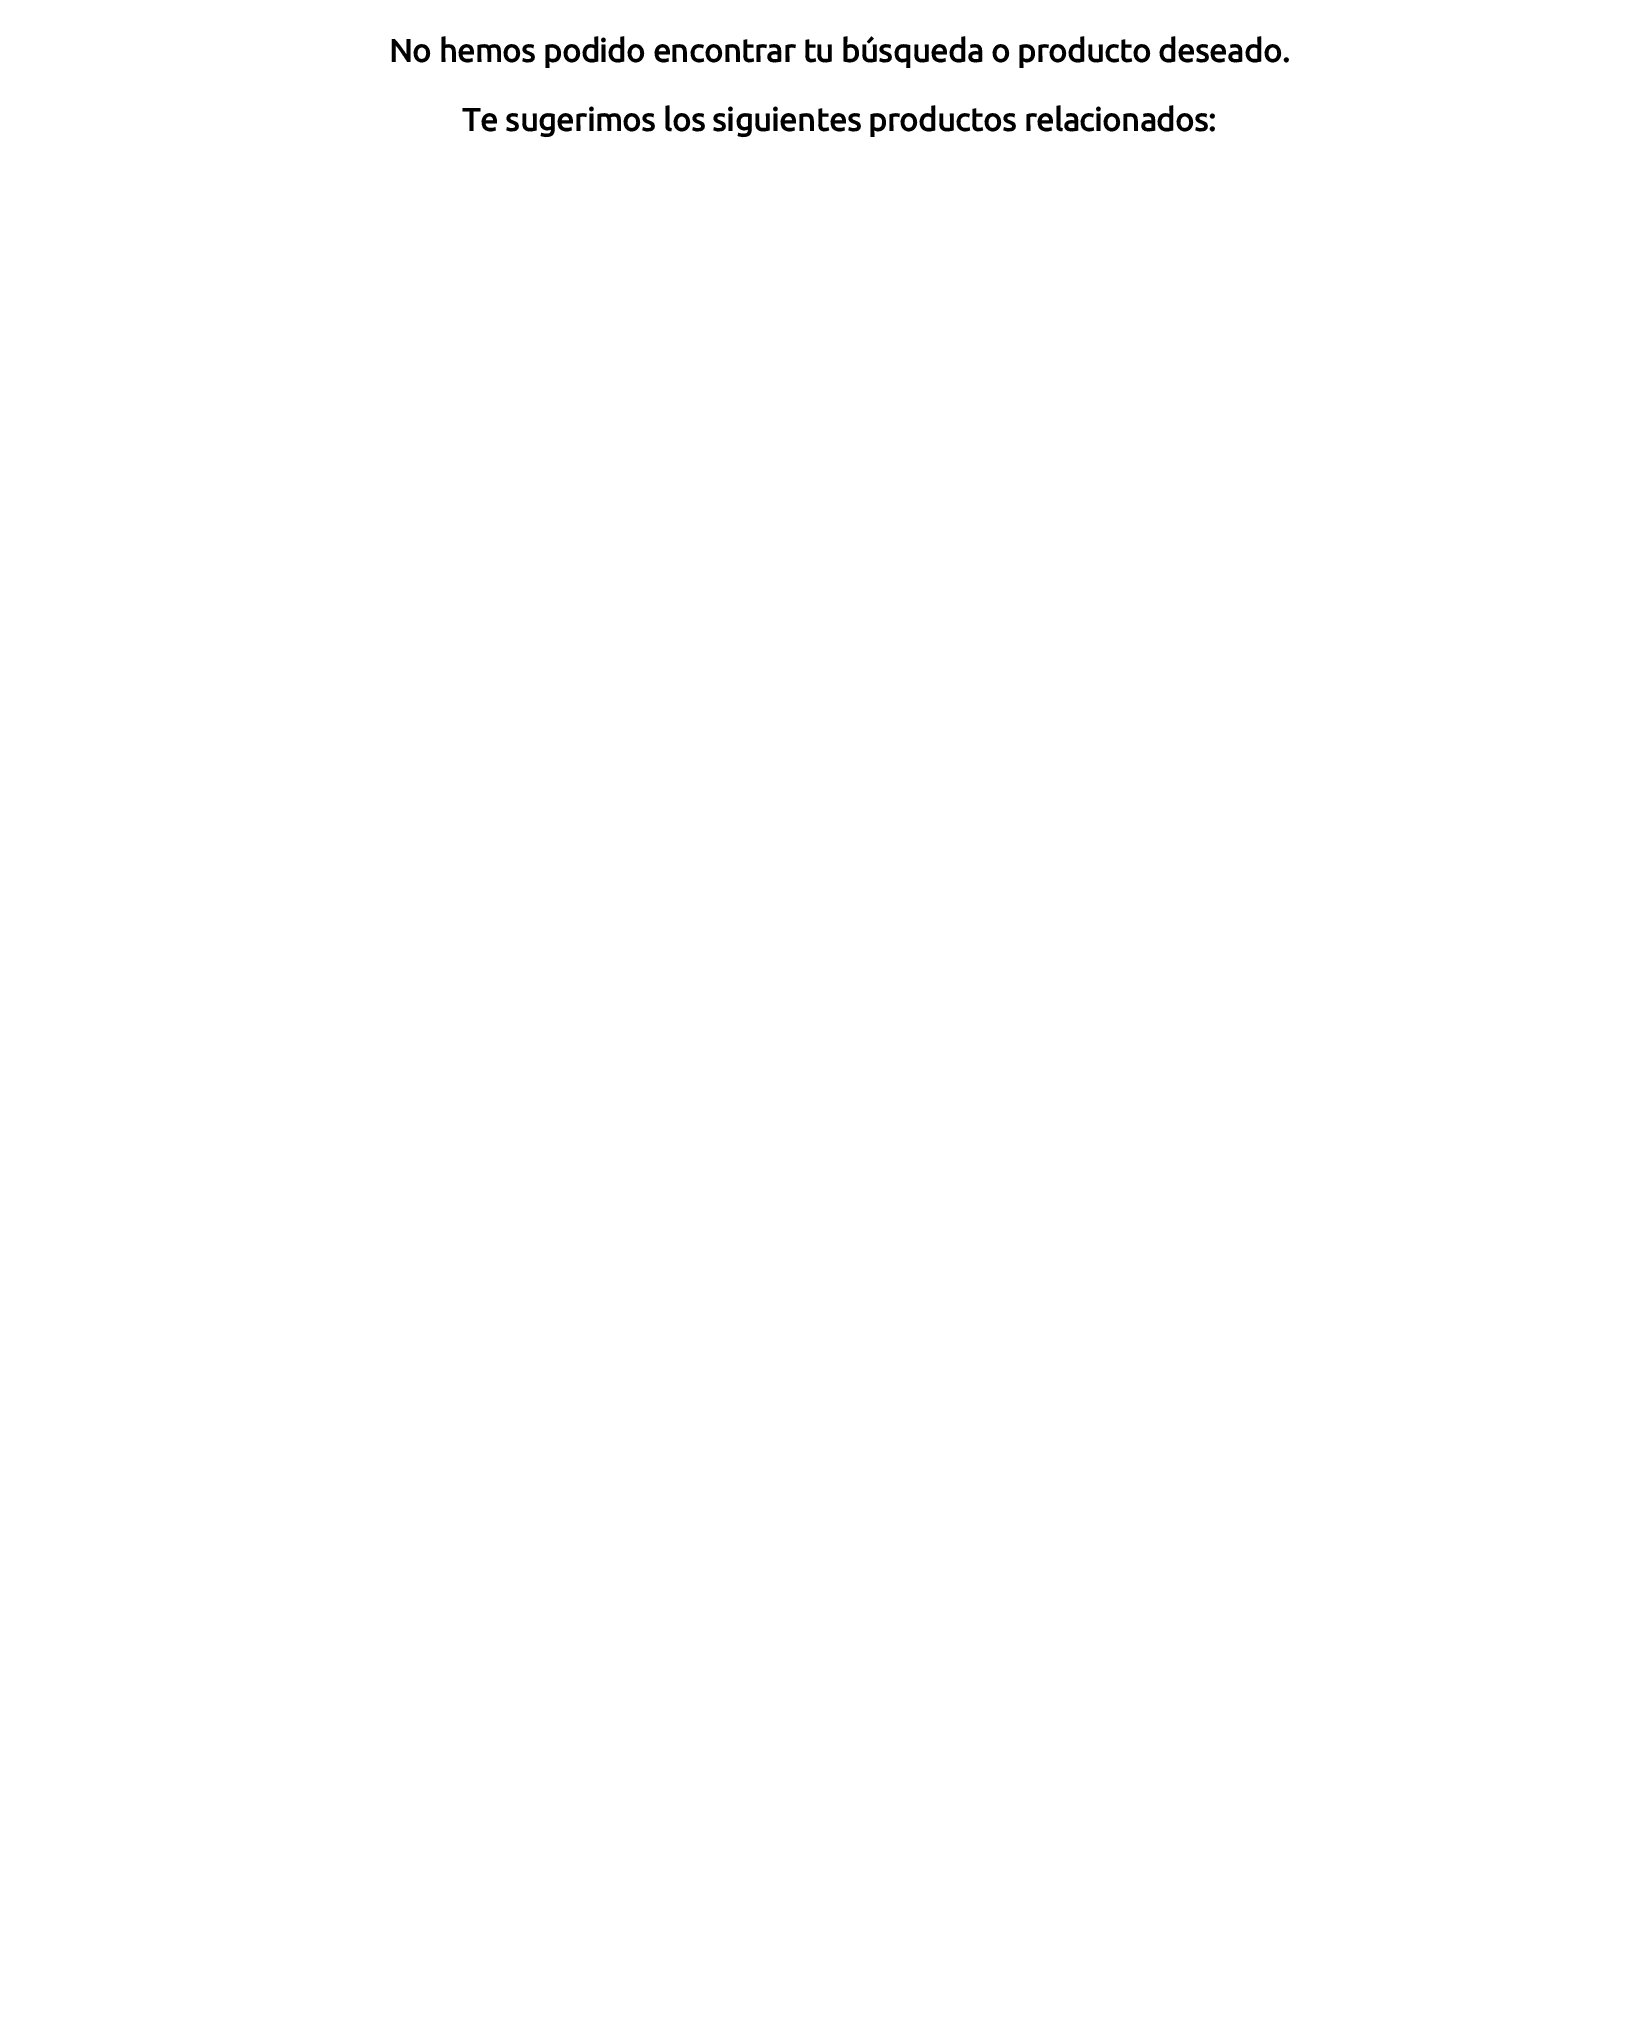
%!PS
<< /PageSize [1637 2019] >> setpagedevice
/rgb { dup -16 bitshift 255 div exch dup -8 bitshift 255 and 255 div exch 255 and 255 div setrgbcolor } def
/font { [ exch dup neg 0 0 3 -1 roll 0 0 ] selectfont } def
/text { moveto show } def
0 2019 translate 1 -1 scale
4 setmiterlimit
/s1 { /Ubuntu-Bold 32 font 16#000000 rgb } def
16#FFFFFF rgb
0 0 1637 2019 rectfill
s1
(No hemos podido encontrar tu búsqueda o producto deseado.) 389 62 text
(Te sugerimos los siguientes productos relacionados:) 462 131 text
showpage
